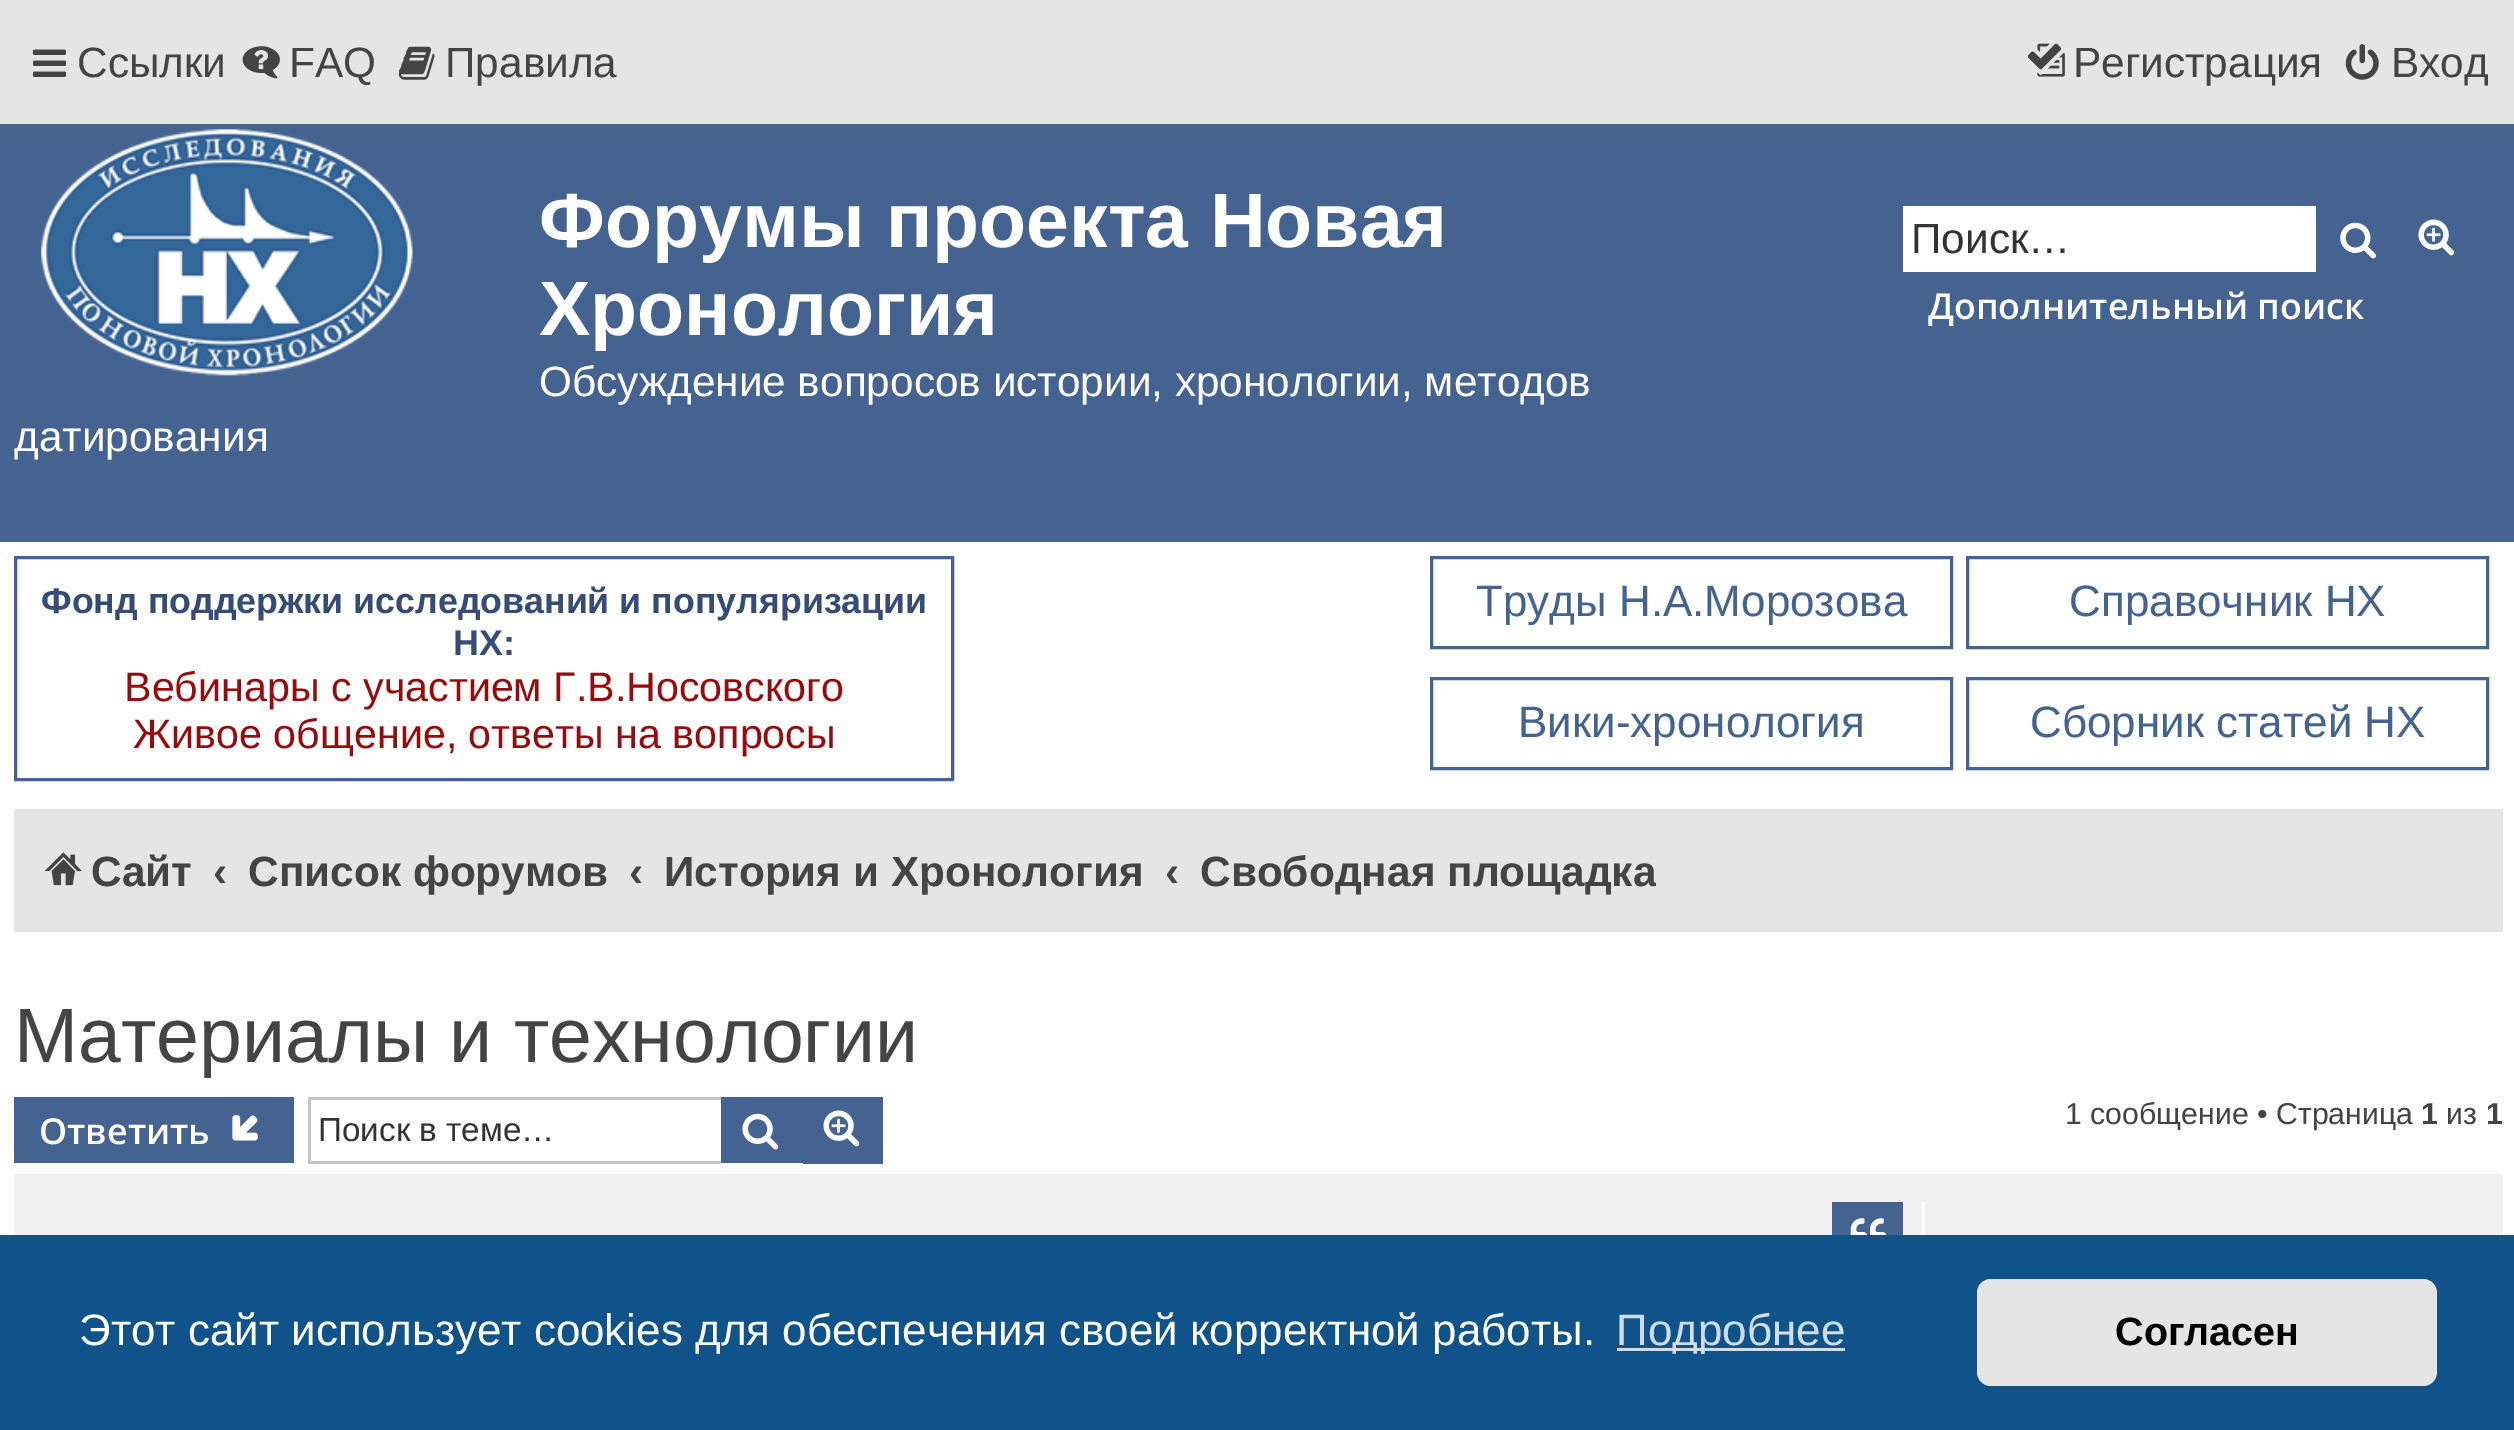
%!PS
<< /PageSize [2514 1430] >> setpagedevice
/rgb { dup -16 bitshift 255 div exch dup -8 bitshift 255 and 255 div exch 255 and 255 div setrgbcolor } def
/font { [ exch dup neg 0 0 3 -1 roll 0 0 ] selectfont } def
/text { moveto show } def
/roundrect { 5 dict begin { /r /h /w /y /x } { exch def } forall
  x r add y moveto x w add y 2 copy h add r arct x w add y h add x 1 index r arct
  x y h add x y r arct x y 2 copy exch w add exch r arct closepath end } def
/picture { 5 dict begin { /h /w /y /x /name } { exch def } forall
  gsave x y translate w h scale
  w h 8 [w 0 0 h 0 0] name (r) file false 3 colorimage grestore end } def
0 1430 translate 1 -1 scale
4 setmiterlimit
/s1 { /LiberationSans-Regular 42.35 font 16#444444 rgb } def
/s2 { /LiberationSans-Bold 77 font 16#FFFFFF rgb } def
/s3 { /LiberationSans-Regular 42.35 font 16#FFFFFF rgb } def
/s4 { /LiberationSans-Regular 42.35 font 16#333333 rgb } def
/s5 { /OpenSans-SemiBold 35.75 font 16#FFFFFF rgb } def
/s6 { /LiberationSans-Bold 35.75 font 16#364B78 rgb } def
/s7 { /LiberationSans-Regular 41.25 font 16#970B0D rgb } def
/s8 { /LiberationSans-Regular 44 font 16#456390 rgb } def
/s9 { /LiberationSans-Bold 42.35 font 16#444444 rgb } def
/s10 { /LiberationSans-Regular 77 font 16#444444 rgb } def
/s11 { /LiberationSans-Regular 33.25 font 16#333333 rgb } def
/s12 { /LiberationSans-Regular 30.25 font 16#444444 rgb } def
/s13 { /LiberationSans-Bold 30.25 font 16#444444 rgb } def
/s14 { /LiberationSans-Regular 44 font 16#FFFFFF rgb } def
/s15 { /LiberationSans-Regular 44 font 16#CFDDE8 rgb } def
/s16 { /LiberationSans-Bold 39.5 font 16#000000 rgb } def
16#FFFFFF rgb
0 0 2514 1430 rectfill
16#E5E5E5 rgb
0 0 2514 124 rectfill
(pic1.raw) 33 49 33 28 picture
s1
(Ссылки) 77 77 text
(pic2.raw) 242 46 38 33 picture
(FAQ) 289 77 text
(pic3.raw) 398 46 37 34 picture
(Правила) 445 77 text
(pic4.raw) 2027 43 38 34 picture
(Регистрация) 2073 77 text
(pic5.raw) 2345 44 34 36 picture
(Вход) 2391 77 text
16#456390 rgb
0 124 2514 418 rectfill
(pic6.raw) 41 129 372 247 picture
s2
(Форумы проекта Новая) 539 247 text
(Хронология) 539 335 text
s3
(Обсуждение вопросов истории, хронологии, методов) 539 396 text
(датирования) 14 451 text
1903 206 413 66 rectfill
s4
(Поиск…) 1911 253 text
(pic7.raw) 2340 222 36 37 picture
(pic8.raw) 2418 219 37 37 picture
s5
(Дополнительный поиск) 1928 319 text
16#456390 rgb
3 setlinewidth
15.5 557.5 937 222 rectstroke
s6
(Фонд поддержки исследований и популяризации) 41 613 text
(НХ:) 453 655 text
s7
(Вебинары с участием Г.В.Носовского) 124 701 text
(Живое общение, ответы на вопросы) 133 748 text
16#456390 rgb
1431.5 557.5 520 90 rectstroke
s8
(Труды Н.А.Морозова) 1476 616 text
1967.5 557.5 520 90 rectstroke
(Справочник НХ) 2069 616 text
1431.5 678.5 520 90 rectstroke
(Вики-хронология) 1518 737 text
1967.5 678.5 520 90 rectstroke
(Сборник статей НХ) 2030 737 text
16#E5E5E5 rgb
14 809 2489 123 rectfill
(pic9.raw) 44 852 38 34 picture
s9
(Сайт) 91 886 text
(‹) 213 886 text
(Список форумов) 248 886 text
(‹) 629 886 text
(История и Хронология) 664 886 text
(‹) 1165 886 text
gsave
1199 825 457 94 rectclip
(Свободная площадка) 1200 886 text
grestore
s10
(Материалы и технологии) 14 1062 text
16#456390 rgb
14 1097 280 66 rectfill
s5
(Ответить) 39 1144 text
(pic10.raw) 232 1115 26 26 picture
16#C7C3BF rgb
308 1097 413 3 rectfill
308 1161 413 3 rectfill
308 1097 3 66 rectfill
s11
(Поиск в теме…) 318 1141 text
16#456390 rgb
721 1097 82 66 rectfill
(pic11.raw) 742 1113 37 37 picture
803 1100 77 61 rectfill
803 1097 80 3 rectfill
880 1097 3 66 rectfill
803 1161 80 3 rectfill
(pic8.raw) 823 1110 37 37 picture
s12
(1 сообщение • Страница) 2065 1124 text
s13
(1) 2421 1124 text
s12
(из) 2446 1124 text
s13
(1) 2486 1124 text
16#F0F0F0 rgb
14 1174 2489 61 rectfill
16#456390 rgb
1832 1202 71 33 rectfill
(pic12.raw) 1850 1218 37 17 picture
16#FFFFFF rgb
1922 1202 3 33 rectfill
16#0F538A rgb
0 1235 2514 195 rectfill
s14
(Этот сайт использует cookies для обеспечения своей корректной работы.) 79 1345 text
16#CFDDE8 rgb
1617 1348 228 3 rectfill
(Подробнее) 1616 1345 text
16#E5E5E5 rgb
1977 1279 460 107 14 roundrect fill
s16
(Согласен) 2115 1345 text
showpage
